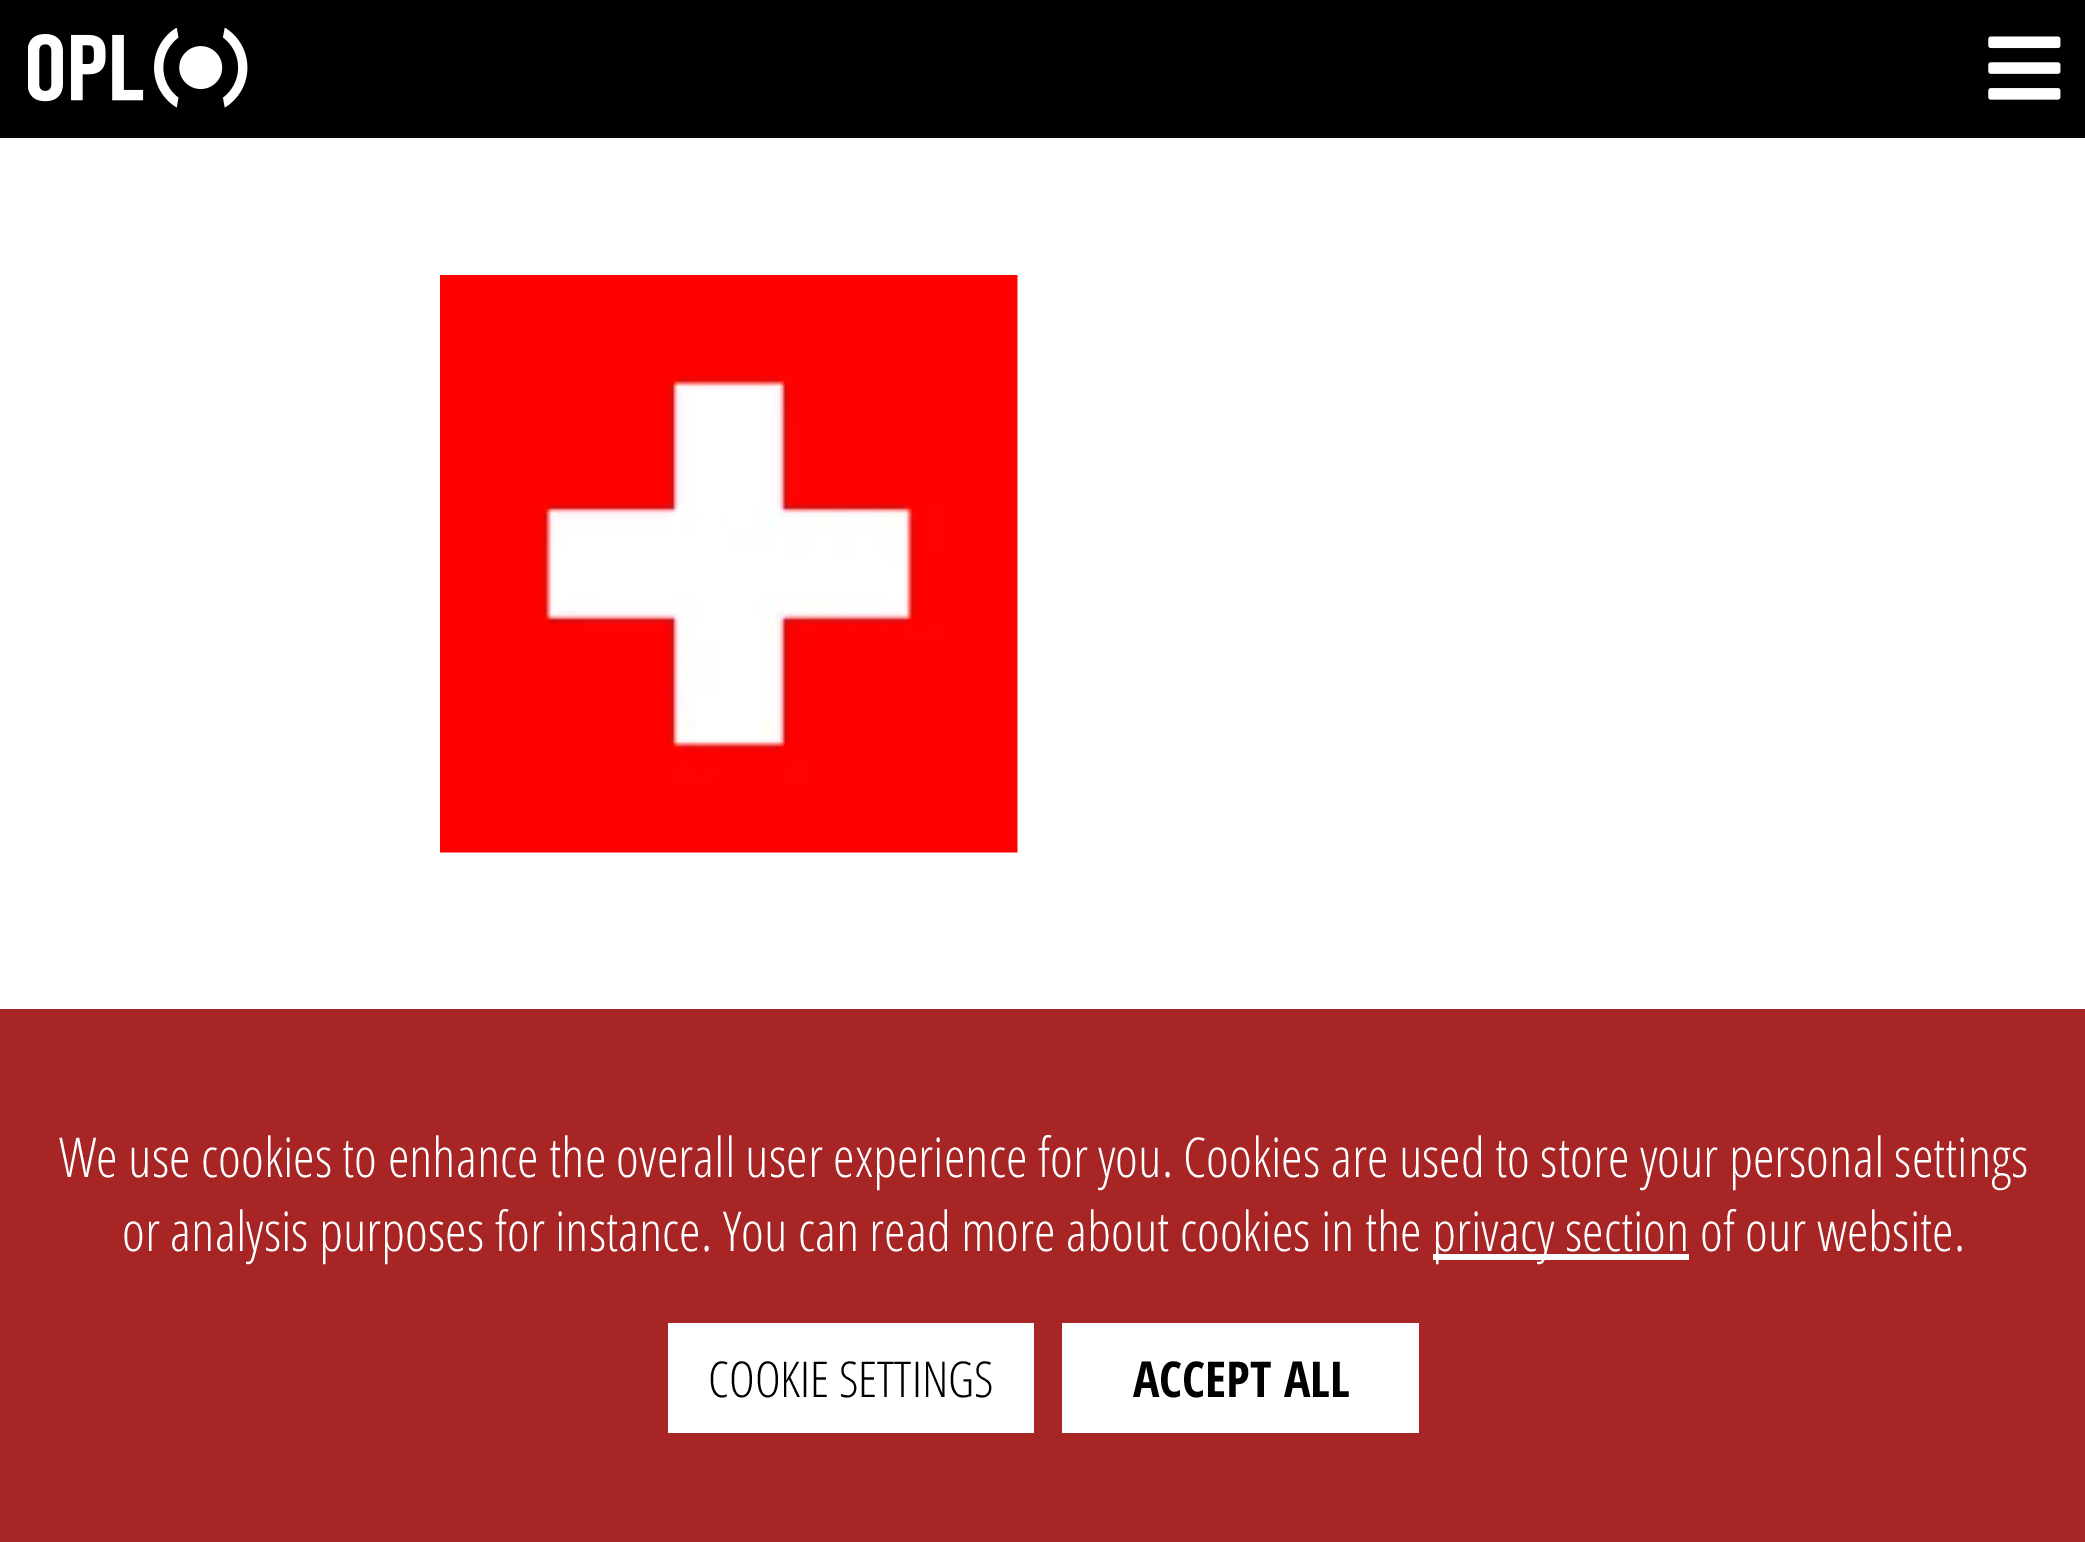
%!PS
<< /PageSize [2085 1542] >> setpagedevice
/rgb { dup -16 bitshift 255 div exch dup -8 bitshift 255 and 255 div exch 255 and 255 div setrgbcolor } def
/font { [ exch dup neg 0 0 3 -1 roll 0 0 ] selectfont } def
/text { moveto show } def
/picture { 5 dict begin { /h /w /y /x /name } { exch def } forall
  gsave x y translate w h scale
  w h 8 [w 0 0 h 0 0] name (r) file false 3 colorimage grestore end } def
0 1542 translate 1 -1 scale
4 setmiterlimit
/s1 { /OpenSans-Light 55 font 16#FFFFFF rgb } def
/s2 { /OpenSans-Light 49.5 font 16#000000 rgb } def
/s3 { /OpenSansCondensed-Bold 49.5 font 16#000000 rgb } def
16#FFFFFF rgb
0 0 2085 1542 rectfill
16#000000 rgb
0 0 2085 138 rectfill
(pic1.raw) 28 28 220 80 picture
(pic2.raw) 1988 36 73 64 picture
(pic3.raw) 440 275 578 578 picture
16#A72525 rgb
0 1009 2085 533 rectfill
s1
(We use cookies to enhance the overall user experience for you. Cookies are used to store your personal settings) 59 1177 text
(or analysis purposes for instance. You can read more about cookies in the) 122 1251 text
1433 1254 256 6 rectfill
(privacy section of our website.) 1432 1251 text
668 1323 366 110 rectfill
s2
(COOKIE SETTINGS) 708 1397 text
16#FFFFFF rgb
1062 1323 357 110 rectfill
s3
(ACCEPT ALL) 1133 1397 text
showpage
